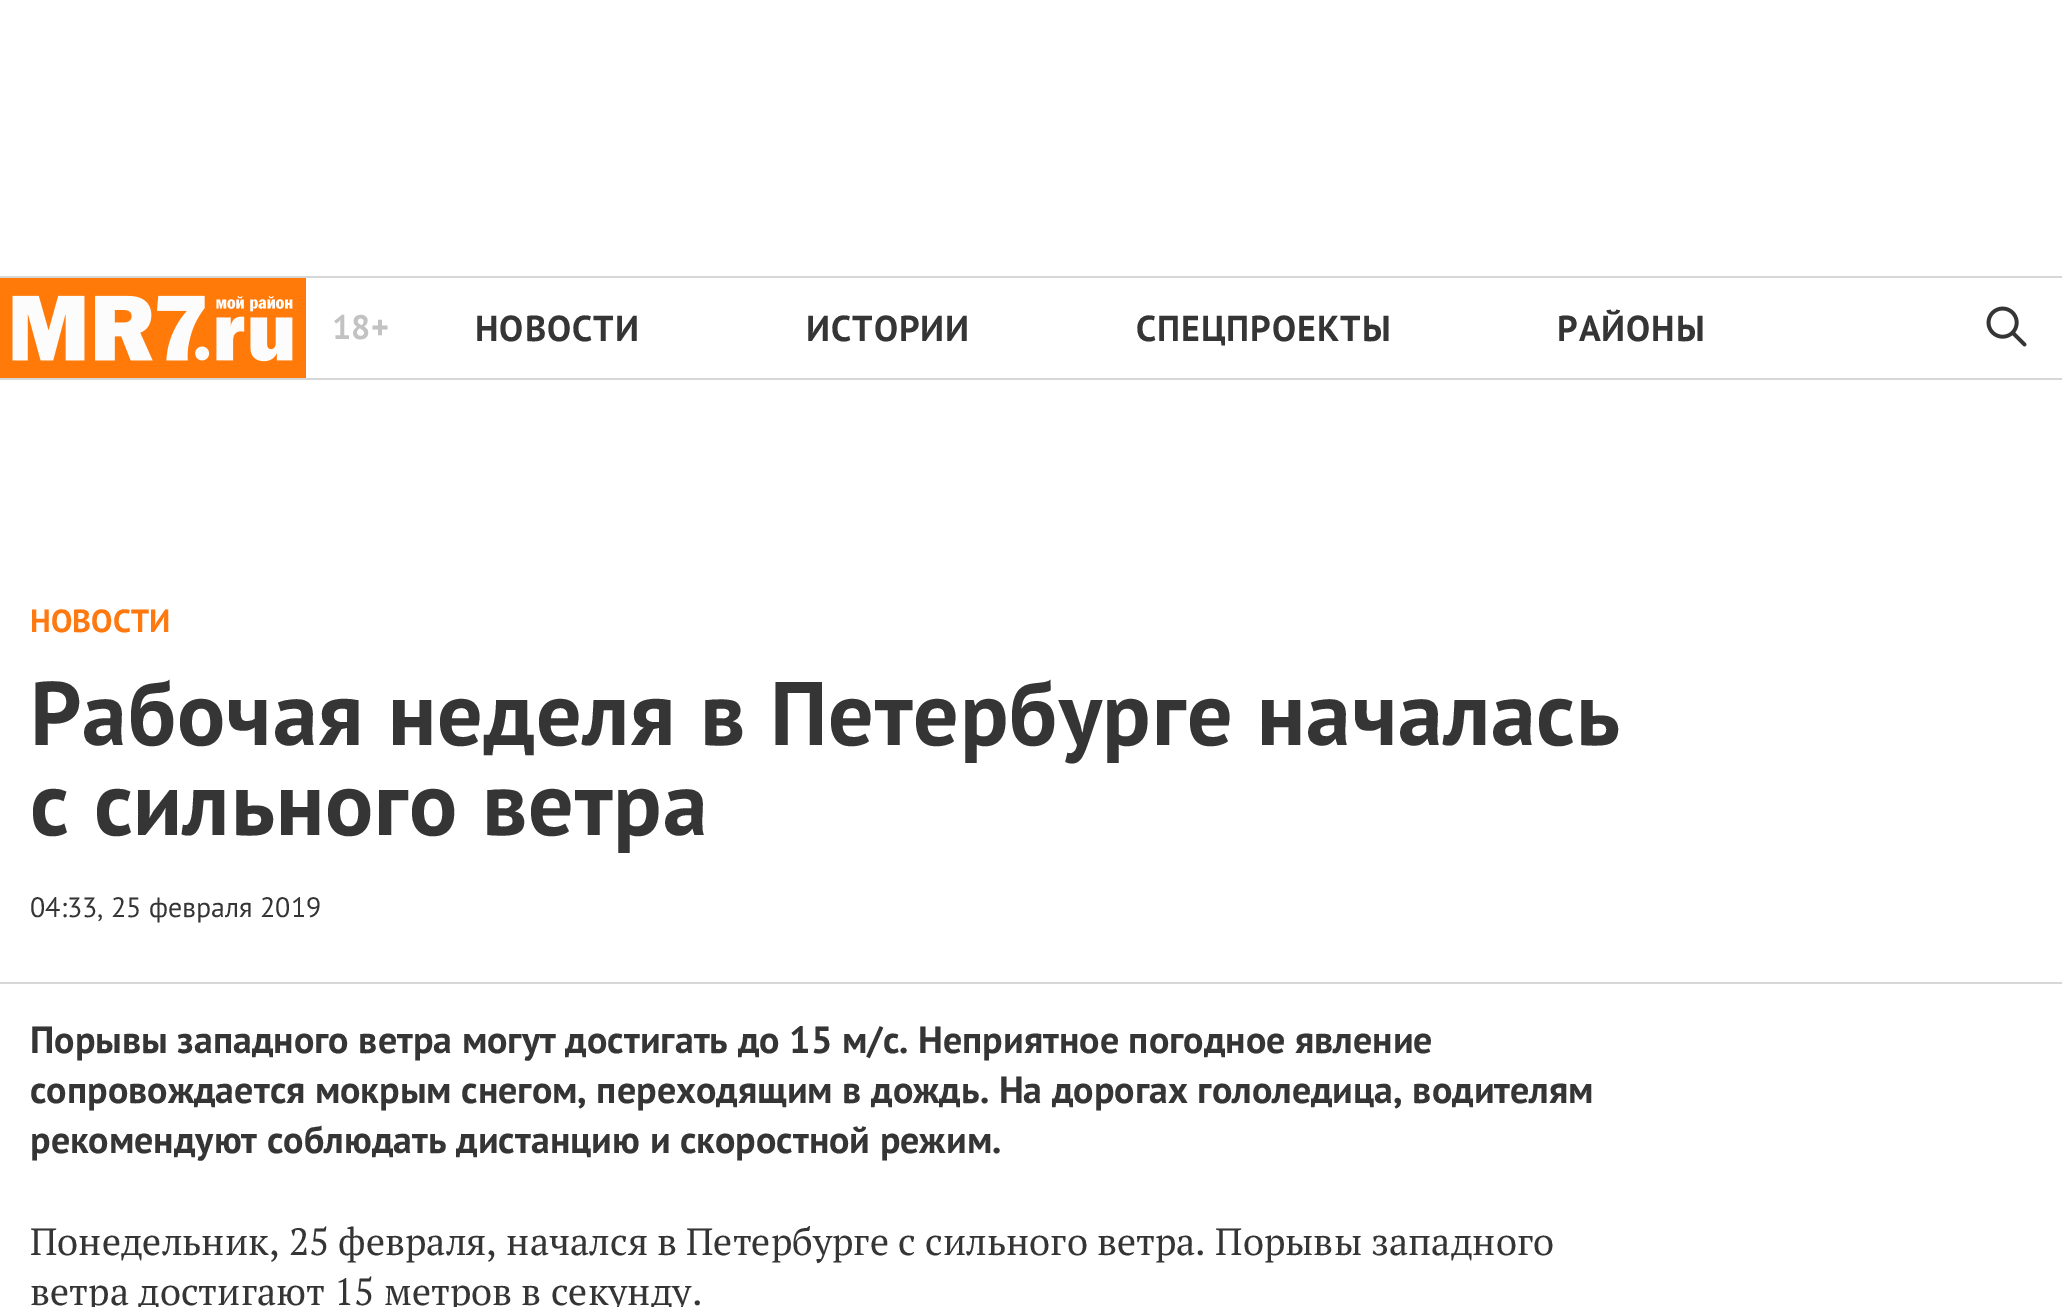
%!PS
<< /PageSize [2062 1307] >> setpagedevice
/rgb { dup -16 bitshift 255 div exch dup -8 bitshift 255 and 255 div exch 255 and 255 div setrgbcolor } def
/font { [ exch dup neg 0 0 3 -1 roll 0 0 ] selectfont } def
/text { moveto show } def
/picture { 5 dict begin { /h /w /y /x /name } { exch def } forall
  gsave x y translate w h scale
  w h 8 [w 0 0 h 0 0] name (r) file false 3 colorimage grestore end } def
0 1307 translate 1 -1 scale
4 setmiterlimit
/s1 { /PTSans-Bold 34 font 16#C2C2C2 rgb } def
/s2 { /PTSans-Bold 32 font 16#FF7911 rgb } def
/s3 { /PTSans-Regular 28 font 16#353535 rgb } def
/s4 { /PTSans-Bold 38 font 16#353535 rgb } def
/s5 { /PTSerif-Regular 38 font 16#353535 rgb } def
16#FFFFFF rgb
0 0 2062 1307 rectfill
16#D7D7D7 rgb
0 276 2062 2 rectfill
0 378 2062 2 rectfill
(pic1.raw) 0 278 306 100 picture
s1
(18+) 332 339 text
/PTSans-Bold 36 font
16#353535 rgb
475 341 moveto 1 0 (НОВОСТИ) ashow
806 341 moveto 1 0 (ИСТОРИИ) ashow
1136 341 moveto 1 0 (СПЕЦПРОЕКТЫ) ashow
1557 341 moveto 1 0 (РАЙОНЫ) ashow
(pic2.raw) 1986 306 41 41 picture
16#D7D7D7 rgb
0 982 2062 2 rectfill
s2
(НОВОСТИ) 30 632 text
/PTSans-Bold 90 font
16#353535 rgb
30 745 moveto 0.9 0 (Рабочая неделя в Петербурге началась) ashow
30 835 moveto 0.9 0 (с сильного ветра) ashow
s3
(04:33, 25 февраля 2019) 30 917 text
s4
(Порывы западного ветра могут достигать до 15 м/с. Неприятное погодное явление) 30 1053 text
(сопровождается мокрым снегом, переходящим в дождь. На дорогах гололедица, водителям) 30 1103 text
(рекомендуют соблюдать дистанцию и скоростной режим.) 30 1153 text
s5
(Понедельник, 25 февраля, начался в Петербурге с сильного ветра. Порывы западного) 30 1255 text
(ветра достигают 15 метров в секунду.) 30 1305 text
showpage
